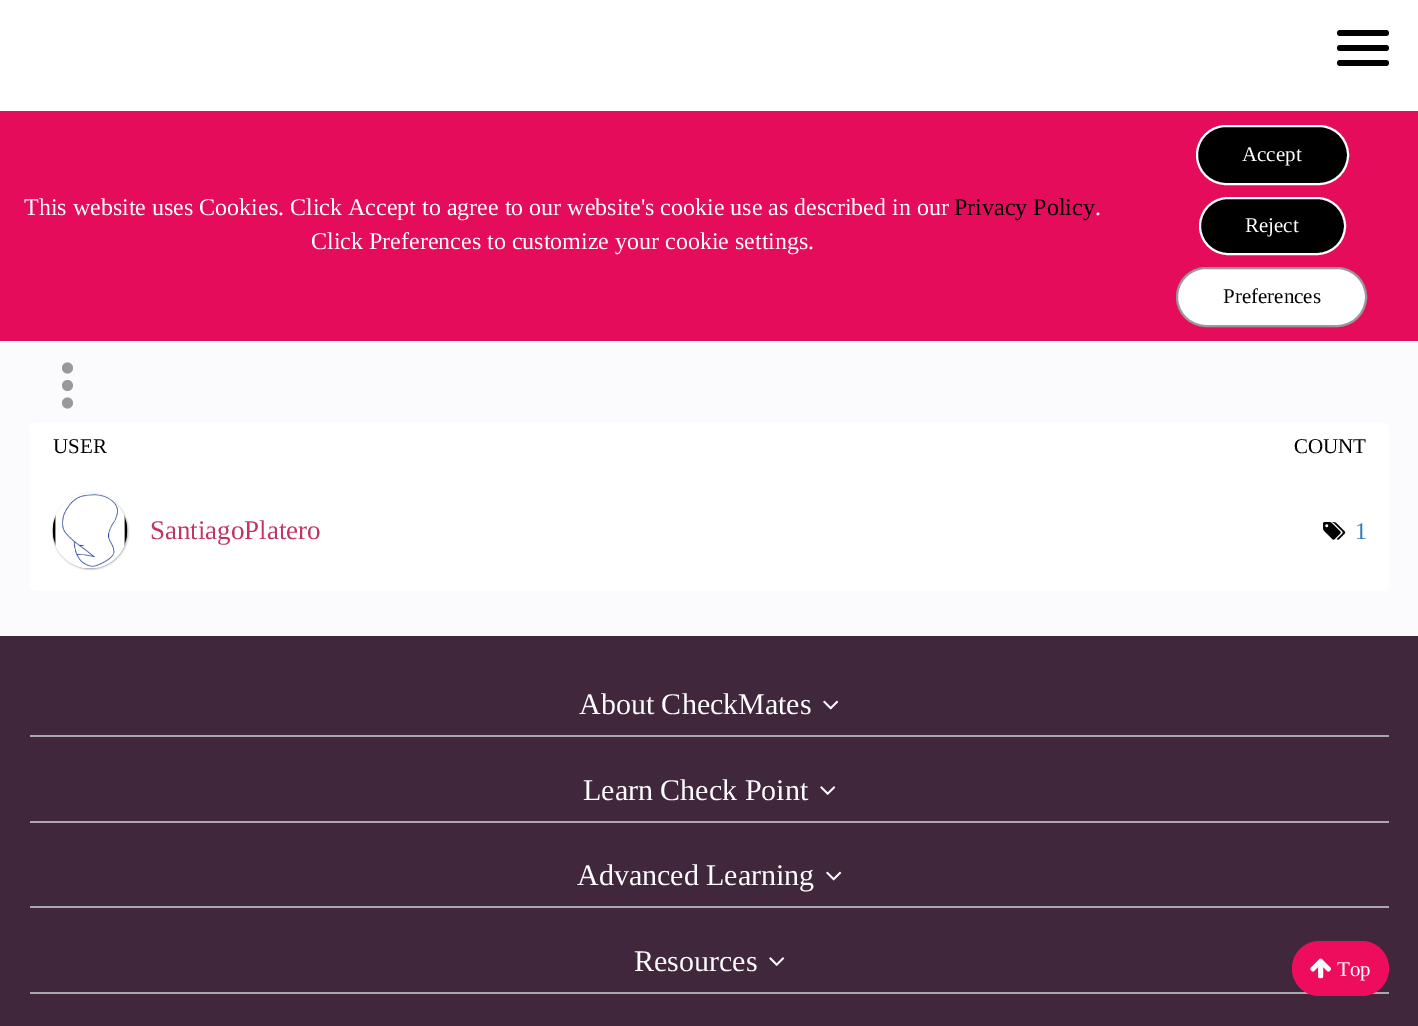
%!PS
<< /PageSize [1418 1026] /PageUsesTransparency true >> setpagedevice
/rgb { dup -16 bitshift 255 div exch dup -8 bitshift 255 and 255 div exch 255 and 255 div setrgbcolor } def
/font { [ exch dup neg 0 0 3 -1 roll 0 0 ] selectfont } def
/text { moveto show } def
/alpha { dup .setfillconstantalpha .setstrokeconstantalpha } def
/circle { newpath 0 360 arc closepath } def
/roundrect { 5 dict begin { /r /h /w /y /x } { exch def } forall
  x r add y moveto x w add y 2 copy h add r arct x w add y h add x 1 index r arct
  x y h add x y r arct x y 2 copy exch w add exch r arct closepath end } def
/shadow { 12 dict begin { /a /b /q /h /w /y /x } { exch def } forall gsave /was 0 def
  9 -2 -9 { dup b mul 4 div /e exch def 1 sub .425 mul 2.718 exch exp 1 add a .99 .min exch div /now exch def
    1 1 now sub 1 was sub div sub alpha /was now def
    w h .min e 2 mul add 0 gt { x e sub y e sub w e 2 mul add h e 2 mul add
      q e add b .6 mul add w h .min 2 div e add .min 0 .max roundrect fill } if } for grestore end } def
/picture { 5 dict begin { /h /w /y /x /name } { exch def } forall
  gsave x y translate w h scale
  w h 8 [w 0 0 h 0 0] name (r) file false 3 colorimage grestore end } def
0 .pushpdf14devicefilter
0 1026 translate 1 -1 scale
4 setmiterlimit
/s1 { /LiberationSerif-Regular 24 font 16#FFFFFF rgb } def
/s2 { /LiberationSerif-Regular 24 font 16#000000 rgb } def
/s3 { /LiberationSerif-Regular 21 font 16#FFFFFF rgb } def
/s4 { /LiberationSerif-Regular 21 font 16#000000 rgb } def
/s5 { /LiberationSerif-Regular 27 font 16#C23563 rgb } def
/s6 { /LiberationSerif-Regular 24 font 16#337AB7 rgb } def
/s7 { /LiberationSerif-Regular 30 font 16#FFFFFF rgb } def
16#FBFBFD rgb
0 0 1418 1026 rectfill
16#E40C5B rgb
0 111 1418 230 rectfill
s1
(This website uses Cookies. Click Accept to agree to our website's cookie use as described in our) 24 215 text
s2
(Privacy Policy) 954 215 text
s1
(.) 1095 215 text
(Click Preferences to customize your cookie settings.) 311 249 text
16#000000 rgb
1197 126 151 58 29 roundrect gsave fill grestore
16#FFFFFF rgb
2 setlinewidth
stroke
s3
(Accept) 1242 161 text
16#000000 rgb
1200 198 145 56 28 roundrect gsave fill grestore
16#FFFFFF rgb
stroke
(Reject) 1245 232 text
1177 268 189 58 29 roundrect gsave fill grestore
16#999999 rgb
stroke
s4
(Preferences) 1223 303 text
16#FFFFFF rgb
0 0 1418 111 rectfill
16#000000 rgb
1337 30 52 6 3 roundrect fill
1337 45 52 6 3 roundrect fill
1337 60 52 6 3 roundrect fill
16#999999 rgb
67.5 368 5.5 circle fill
67.5 385.5 5.5 circle fill
67.5 403 5.5 circle fill
16#FFFFFF rgb
30 423 1359 168 5 roundrect fill
s4
(USER) 53 453 text
(COUNT) 1294 453 text
16#999999 rgb
53 494 75 75 37.5 1 1 shadow
(pic1.raw) 52 493 76 75 picture
s5
(SantiagoPlatero) 150 539 text
(pic2.raw) 1323 522 23 18 picture
s6
(1) 1355 539 text
16#41273C rgb
0 636 1418 390 rectfill
16#A7A9AC rgb
30 735 1359 2 rectfill
s7
(About CheckMates) 579 714 text
(pic3.raw) 823 700 16 10 picture
16#A7A9AC rgb
30 821 1359 2 rectfill
s7
(Learn Check Point) 583 800 text
(pic4.raw) 820 786 16 9 picture
16#A7A9AC rgb
30 906 1359 2 rectfill
s7
(Advanced Learning) 577 885 text
(pic3.raw) 826 871 16 10 picture
16#A7A9AC rgb
30 992 1359 2 rectfill
s7
(Resources) 634 971 text
(pic4.raw) 769 957 16 9 picture
16#EE0C5D rgb
1292 941 97 55 27.5 roundrect fill
(pic5.raw) 1310 958 21 21 picture
s3
(Top) 1337 976 text
.poppdf14devicefilter showpage
